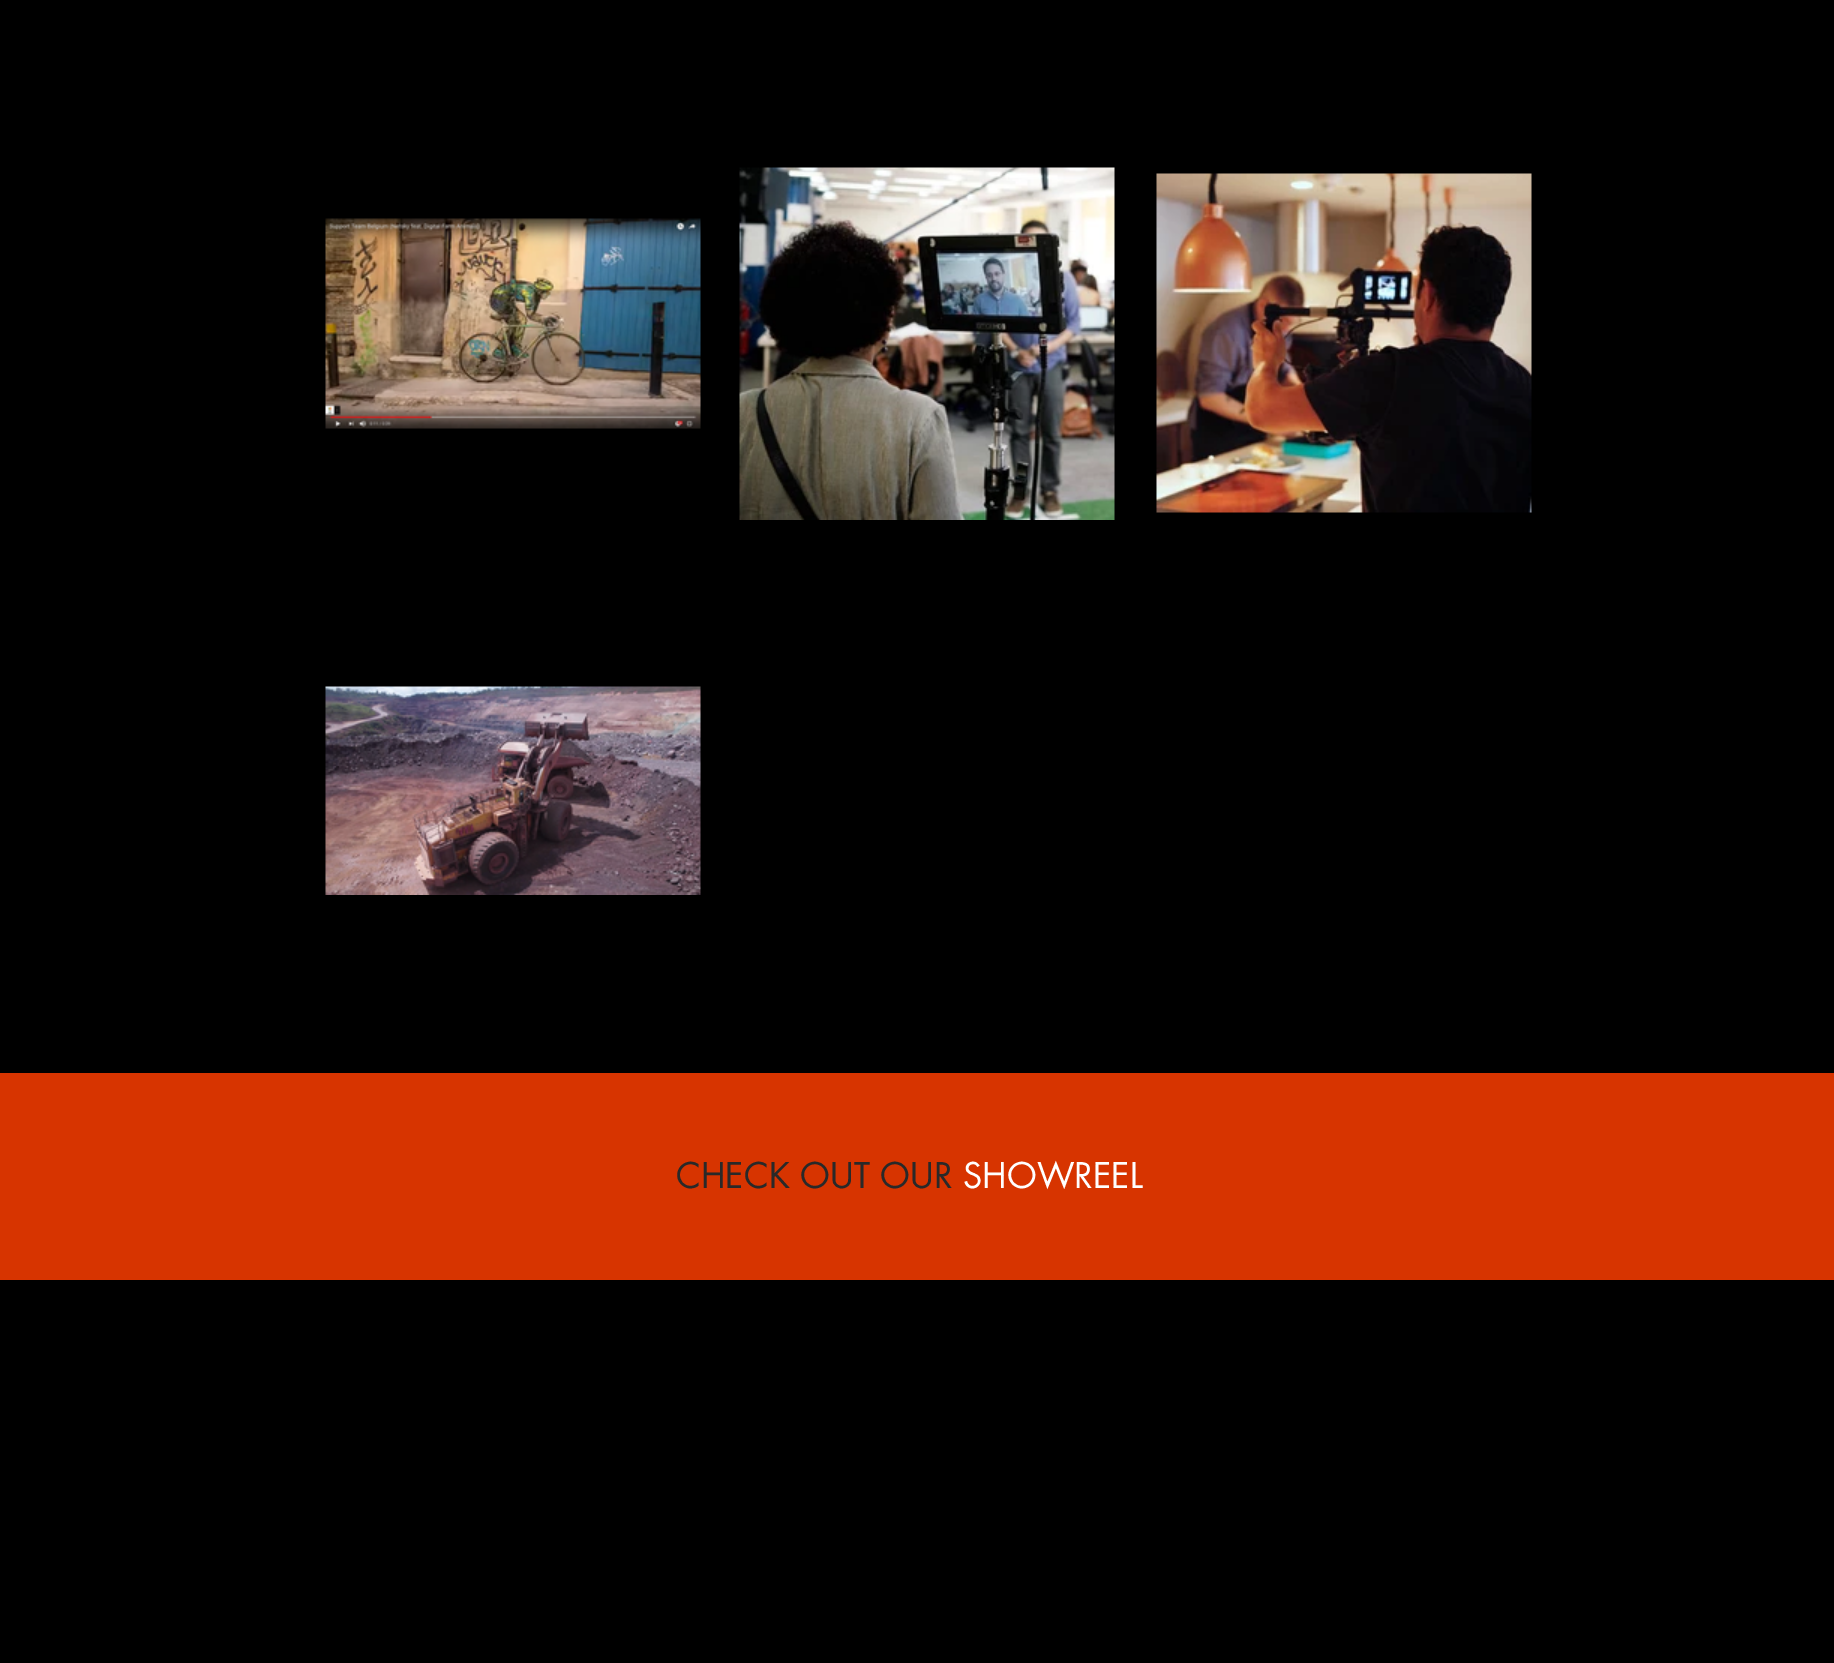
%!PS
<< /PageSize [1834 1663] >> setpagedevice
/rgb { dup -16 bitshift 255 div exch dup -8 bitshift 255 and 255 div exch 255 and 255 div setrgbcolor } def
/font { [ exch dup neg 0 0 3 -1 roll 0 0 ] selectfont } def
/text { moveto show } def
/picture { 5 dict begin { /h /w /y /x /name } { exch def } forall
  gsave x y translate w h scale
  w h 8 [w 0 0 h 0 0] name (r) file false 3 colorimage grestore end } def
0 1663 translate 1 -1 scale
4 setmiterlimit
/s1 { /futura-Regular 34.5 font 16#292929 rgb } def
/s2 { /futura-Regular 34.5 font 16#FFFFFF rgb } def
16#000000 rgb
0 0 1834 1663 rectfill
(pic1.raw) 325 218 376 211 picture
(pic2.raw) 739 167 376 353 picture
(pic3.raw) 1156 173 376 340 picture
(pic4.raw) 325 686 376 209 picture
16#D73400 rgb
0 1073 1834 207 rectfill
s1
(CHECK OUT OUR) 676 1188 text
s2
(SHOWREEL) 963 1188 text
showpage
